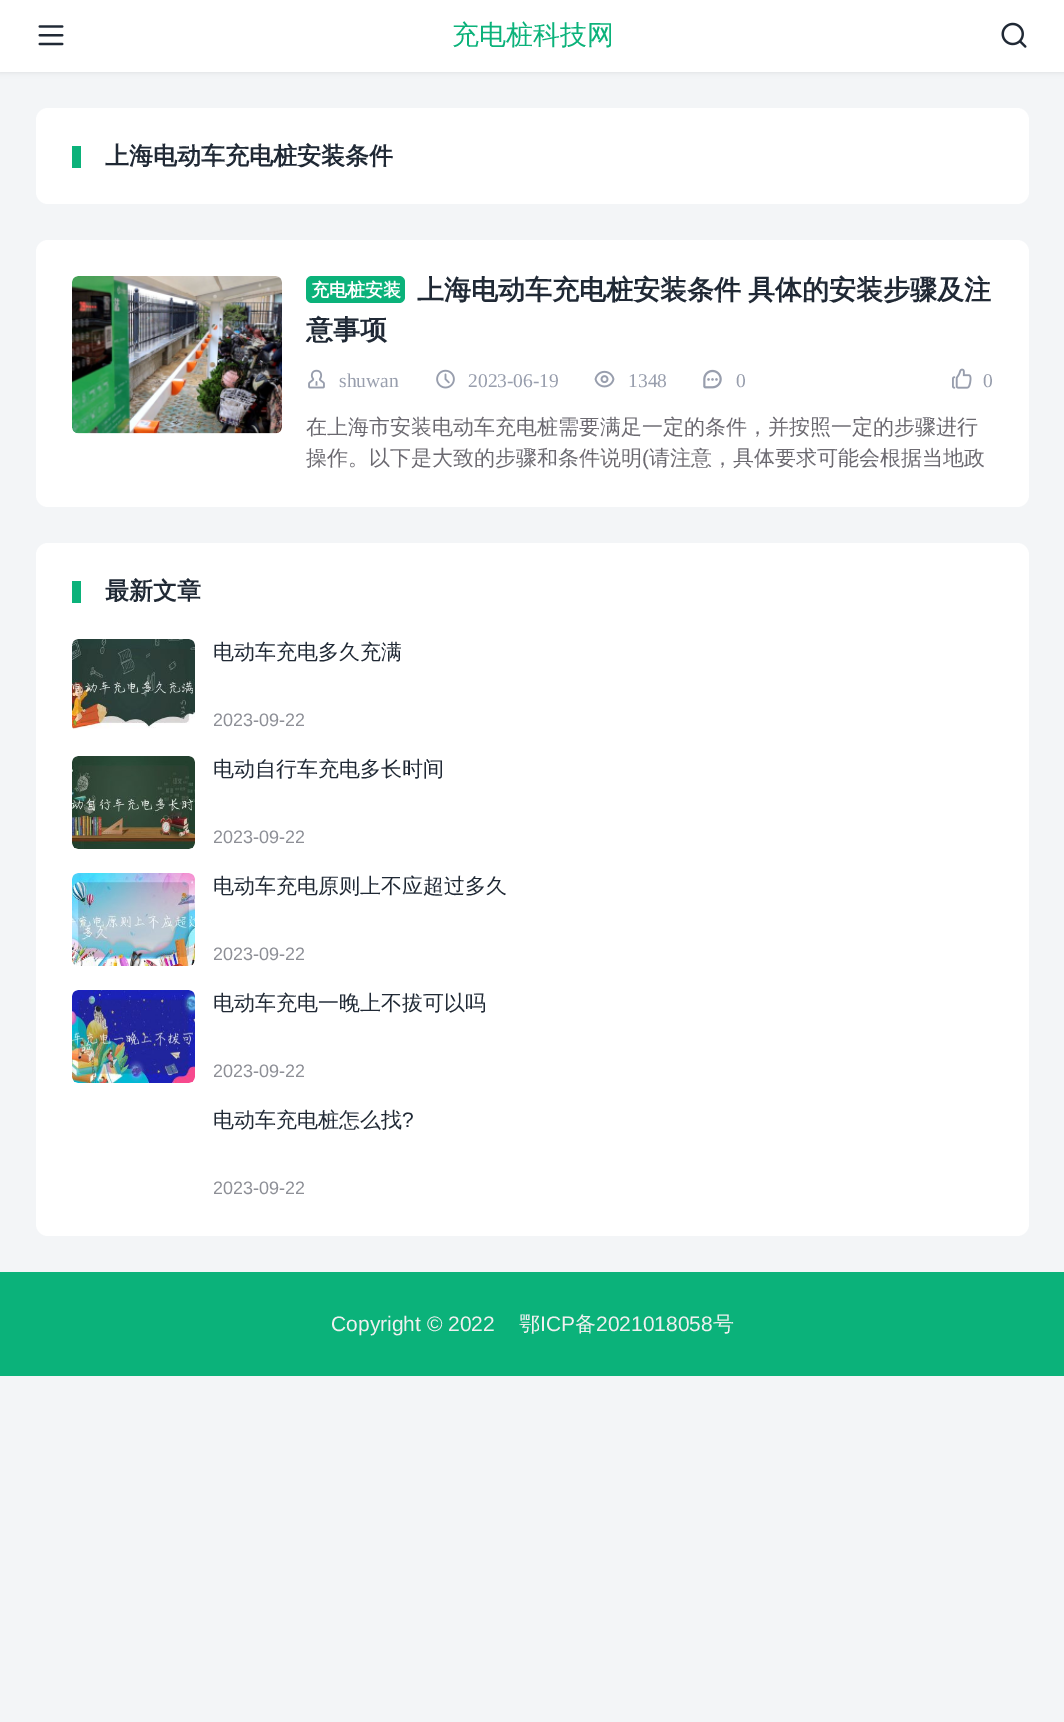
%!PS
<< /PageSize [1064 1722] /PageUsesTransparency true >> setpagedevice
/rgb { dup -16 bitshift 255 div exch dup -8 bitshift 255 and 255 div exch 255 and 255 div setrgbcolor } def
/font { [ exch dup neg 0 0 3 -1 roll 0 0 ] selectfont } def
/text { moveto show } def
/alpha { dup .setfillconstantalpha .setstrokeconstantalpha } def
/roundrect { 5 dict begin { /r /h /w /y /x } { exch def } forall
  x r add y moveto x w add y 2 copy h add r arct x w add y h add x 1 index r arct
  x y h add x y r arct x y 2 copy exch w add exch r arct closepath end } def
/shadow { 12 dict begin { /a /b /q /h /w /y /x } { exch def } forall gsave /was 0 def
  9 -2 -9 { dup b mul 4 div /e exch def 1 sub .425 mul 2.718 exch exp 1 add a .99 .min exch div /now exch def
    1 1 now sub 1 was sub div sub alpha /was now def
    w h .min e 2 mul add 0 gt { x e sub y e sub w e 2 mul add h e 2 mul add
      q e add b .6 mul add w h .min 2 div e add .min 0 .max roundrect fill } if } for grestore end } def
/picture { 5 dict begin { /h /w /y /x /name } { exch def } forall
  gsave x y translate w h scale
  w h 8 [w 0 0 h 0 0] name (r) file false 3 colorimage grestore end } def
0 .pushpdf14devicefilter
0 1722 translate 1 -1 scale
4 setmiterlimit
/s1 { /WenQuanYiZenHei-Medium 27 font 16#0BB27A rgb } def
/s2 { /WenQuanYiZenHei-Bold 24 font 16#202935 rgb } def
/s3 { /WenQuanYiZenHei-Bold 18 font 16#FFFFFF rgb } def
/s4 { /WenQuanYiZenHei-Bold 27 font 16#202935 rgb } def
/s5 { /LiberationSerif-Regular 19.5 font 16#989EAD rgb } def
/s6 { /WenQuanYiZenHei-Medium 21 font 16#6B6970 rgb } def
/s7 { /LiberationSans-Regular 21 font 16#6B6970 rgb } def
/s8 { /WenQuanYiZenHei-Medium 21 font 16#202935 rgb } def
/s9 { /LiberationSans-Regular 18 font 16#8D8F96 rgb } def
/s10 { /LiberationSans-Regular 21 font 16#202935 rgb } def
/s11 { /LiberationSans-Regular 21 font 16#F0F0F0 rgb } def
/s12 { /WenQuanYiZenHei-Medium 21 font 16#F0F0F0 rgb } def
16#F3F5F7 rgb
0 0 1064 1722 rectfill
16#000000 rgb
0 0 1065 72 0 3 0.1 shadow
16#FFFFFF rgb
0 0 1064 72 rectfill
(pic1.raw) 38 25 26 21 picture
s1
(充电桩科技网) 452 44 text
(pic2.raw) 1001 22 26 26 picture
16#FFFFFF rgb
36 108 993 96 12 roundrect fill
16#0BB27A rgb
72 146 9 22 rectfill
s2
(上海电动车充电桩安装条件) 105 164 text
16#FFFFFF rgb
36 240 993 267 12 roundrect fill
(pic3.raw) 72 276 210 158 picture
16#0BB27A rgb
306 276 99 27 6 roundrect fill
s3
(充电桩安装) 311 296 text
/WenQuanYiZenHei-Bold 27 font
16#202935 rgb
417 299 moveto -1 0 32 (上海电动车充电桩安装条件 具体的安装步骤及注) widthshow
(意事项) 306 339 text
(pic4.raw) 308 369 17 20 picture
s5
(shuwan) 339 387 text
(pic5.raw) 436 369 19 20 picture
(2023-06-19) 468 387 text
(pic6.raw) 594 370 21 18 picture
(1348) 628 387 text
(pic7.raw) 703 369 19 20 picture
(0) 736 387 text
(pic8.raw) 952 368 20 21 picture
(0) 983 387 text
s6
(在上海市安装电动车充电桩需要满足一定的条件，并按照一定的步骤进行) 306 434 text
(操作。以下是大致的步骤和条件说明) 306 465 text
s7
(\() 642 465 text
s6
(请注意，具体要求可能会根据当地政) 649 465 text
16#FFFFFF rgb
36 543 993 693 12 roundrect fill
16#0BB27A rgb
72 581 9 22 rectfill
s2
(最新文章) 105 599 text
(pic9.raw) 72 639 123 90 picture
s8
(电动车充电多久充满) 213 659 text
s9
(2023-09-22) 213 726 text
(pic10.raw) 72 756 123 93 picture
s8
(电动自行车充电多长时间) 213 776 text
s9
(2023-09-22) 213 843 text
(pic11.raw) 72 873 123 93 picture
s8
(电动车充电原则上不应超过多久) 213 893 text
s9
(2023-09-22) 213 960 text
(pic12.raw) 72 990 123 93 picture
s8
(电动车充电一晚上不拔可以吗) 213 1010 text
s9
(2023-09-22) 213 1077 text
s8
(电动车充电桩怎么找) 213 1127 text
s10
(?) 402 1127 text
s9
(2023-09-22) 213 1194 text
16#0BB27A rgb
0 1272 1064 104 rectfill
s11
(Copyright © 2022) 331 1331 text
s12
(鄂) 519 1331 text
s11
(ICP) 540 1331 text
s12
(备) 575 1331 text
s11
(2021018058) 596 1331 text
s12
(号) 713 1331 text
.poppdf14devicefilter showpage
